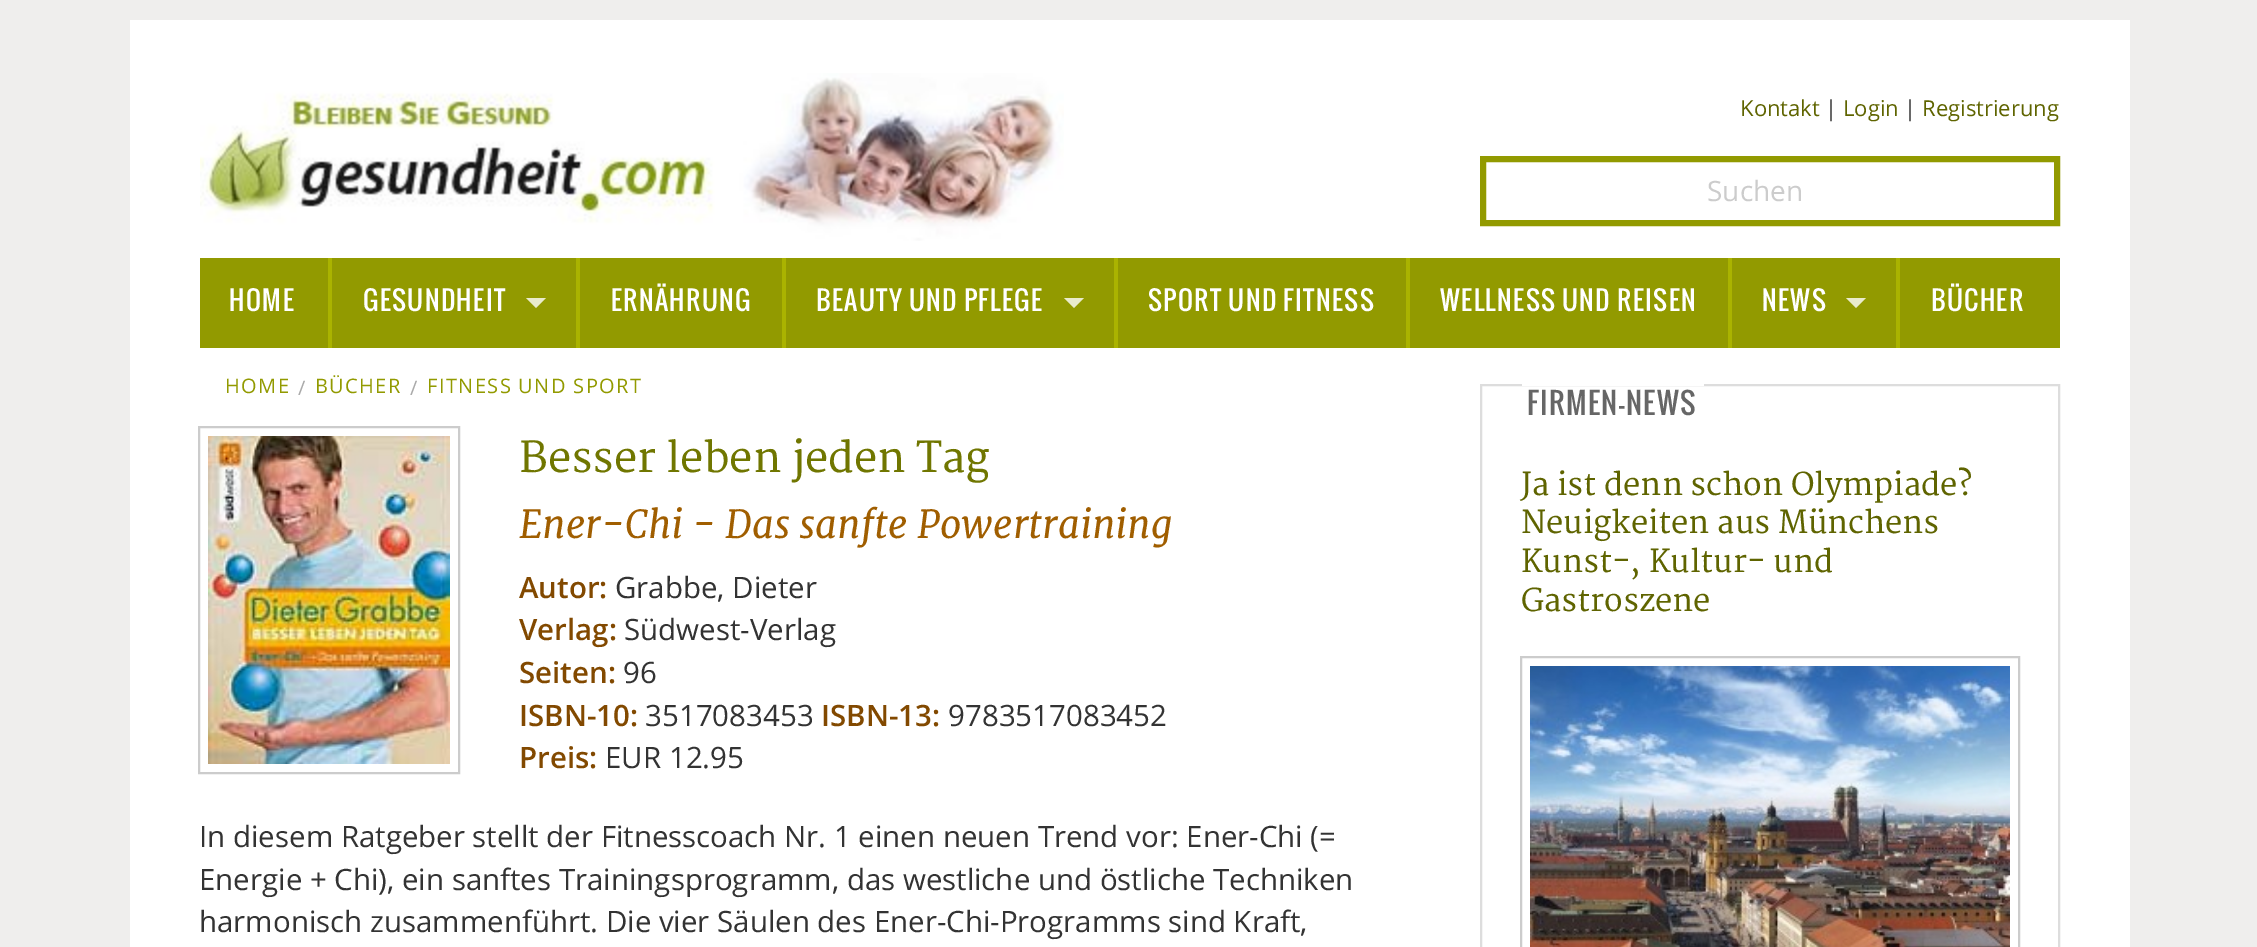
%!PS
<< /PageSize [2257 947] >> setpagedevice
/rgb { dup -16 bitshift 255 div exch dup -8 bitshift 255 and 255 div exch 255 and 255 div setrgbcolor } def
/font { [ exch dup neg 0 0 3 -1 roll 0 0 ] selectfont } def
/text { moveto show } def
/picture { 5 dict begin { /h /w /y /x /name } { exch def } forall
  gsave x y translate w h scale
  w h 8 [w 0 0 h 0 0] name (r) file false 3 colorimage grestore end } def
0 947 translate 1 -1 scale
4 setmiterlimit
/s1 { /OpenSans-Regular 22 font 16#5F6400 rgb } def
/s2 { /OpenSans-Regular 22 font 16#333333 rgb } def
/s3 { /OpenSans-Regular 28 font 16#CCCCCC rgb } def
/s4 { /Merriweather-Regular 41.6 font 16#707600 rgb } def
/s5 { /Merriweather-Italic 38.4 font 16#A05E00 rgb } def
/s6 { /OpenSans-SemiBold 29.45 font 16#824900 rgb } def
/s7 { /OpenSans-Regular 29.45 font 16#333333 rgb } def
/s8 { /Merriweather-Regular 30.9 font 16#5F6400 rgb } def
16#EFEEED rgb
0 0 2257 947 rectfill
16#FFFFFF rgb
130 20 2000 927 rectfill
(pic1.raw) 200 73 864 168 picture
s1
(Kontakt) 1740 116 text
s2
(|) 1825 116 text
s1
(Login) 1843 116 text
s2
(|) 1904 116 text
s1
(Registrierung) 1922 116 text
16#929A00 rgb
6 setlinewidth
1483 159 574 64 rectstroke
s3
(Suchen) 1707 201 text
16#929A00 rgb
200 258 1860 90 rectfill
/Oswald-Regular 26 font
16#FFFFFF rgb
229 311 moveto 1.5 0 (HOME) ashow
16#AAB300 rgb
328 258 4 90 rectfill
16#FFFFFF rgb
363 311 moveto 1.4 0 (GESUNDHEIT) ashow
16#E9EBCC rgb
526 298 moveto 546 298 lineto 536 308 lineto closepath fill
16#AAB300 rgb
576 258 4 90 rectfill
16#FFFFFF rgb
611 311 moveto 1.4 0 (ERNÄHRUNG) ashow
16#AAB300 rgb
782 258 4 90 rectfill
16#FFFFFF rgb
816 311 moveto 1.4 0 (BEAUTY UND PFLEGE) ashow
16#E9EBCC rgb
1064 298 moveto 1084 298 lineto 1074 308 lineto closepath fill
16#AAB300 rgb
1114 258 4 90 rectfill
16#FFFFFF rgb
1148 311 moveto 1.4 0 (SPORT UND FITNESS) ashow
16#AAB300 rgb
1406 258 4 90 rectfill
16#FFFFFF rgb
1440 311 moveto 1.4 0 (WELLNESS UND REISEN) ashow
16#AAB300 rgb
1728 258 4 90 rectfill
16#FFFFFF rgb
1762 311 moveto 1.4 0 (NEWS) ashow
16#E9EBCC rgb
1846 298 moveto 1866 298 lineto 1856 308 lineto closepath fill
16#AAB300 rgb
1896 258 4 90 rectfill
16#FFFFFF rgb
1931 311 moveto 1.4 0 (BÜCHER) ashow
/OpenSans-Regular 20 font
16#929A00 rgb
225 393 moveto 1.4 0 (HOME) ashow
16#AAAAAA rgb
298 395 moveto 1.4 0 (/) ashow
16#929A00 rgb
315 393 moveto 1.4 0 (BÜCHER) ashow
16#AAAAAA rgb
410 395 moveto 1.4 0 (/) ashow
16#929A00 rgb
427 393 moveto 1.4 0 (FITNESS UND SPORT) ashow
16#CCCCCC rgb
2 setlinewidth
199 427 260 346 rectstroke
(pic2.raw) 208 436 242 328 picture
s4
(Besser leben jeden Tag) 519 472 text
s5
(Ener-Chi - Das sanfte Powertraining) 519 538 text
s6
(Autor:) 519 598 text
s7
(Grabbe, Dieter) 615 598 text
s6
(Verlag:) 519 640 text
s7
(Südwest-Verlag) 624 640 text
s6
(Seiten:) 519 683 text
s7
(96) 623 683 text
s6
(ISBN-10:) 519 726 text
s7
(3517083453) 645 726 text
s6
(ISBN-13:) 821 726 text
s7
(9783517083452) 948 726 text
s6
(Preis:) 519 768 text
s7
(EUR 12.95) 605 768 text
(In diesem Ratgeber stellt der Fitnesscoach Nr. 1 einen neuen Trend vor: Ener-Chi \(=) 199 847 text
(Energie + Chi\), ein sanftes Trainingsprogramm, das westliche und östliche Techniken) 199 890 text
(harmonisch zusammenführt. Die vier Säulen des Ener-Chi-Programms sind Kraft,) 199 932 text
16#DDDDDD rgb
1481 385 578 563 rectstroke
16#FFFFFF rgb
1522 384 182 2 rectfill
/Oswald-Regular 28.75 font
16#666666 rgb
1527 415 moveto 1.4 0 (FIRMEN-NEWS) ashow
s8
(Ja ist denn schon Olympiade?) 1521 495 text
(Neuigkeiten aus Münchens) 1521 533 text
(Kunst-, Kultur- und) 1521 572 text
(Gastroszene) 1521 611 text
16#CCCCCC rgb
1521 657 498 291 rectstroke
(pic3.raw) 1530 666 480 281 picture
showpage
